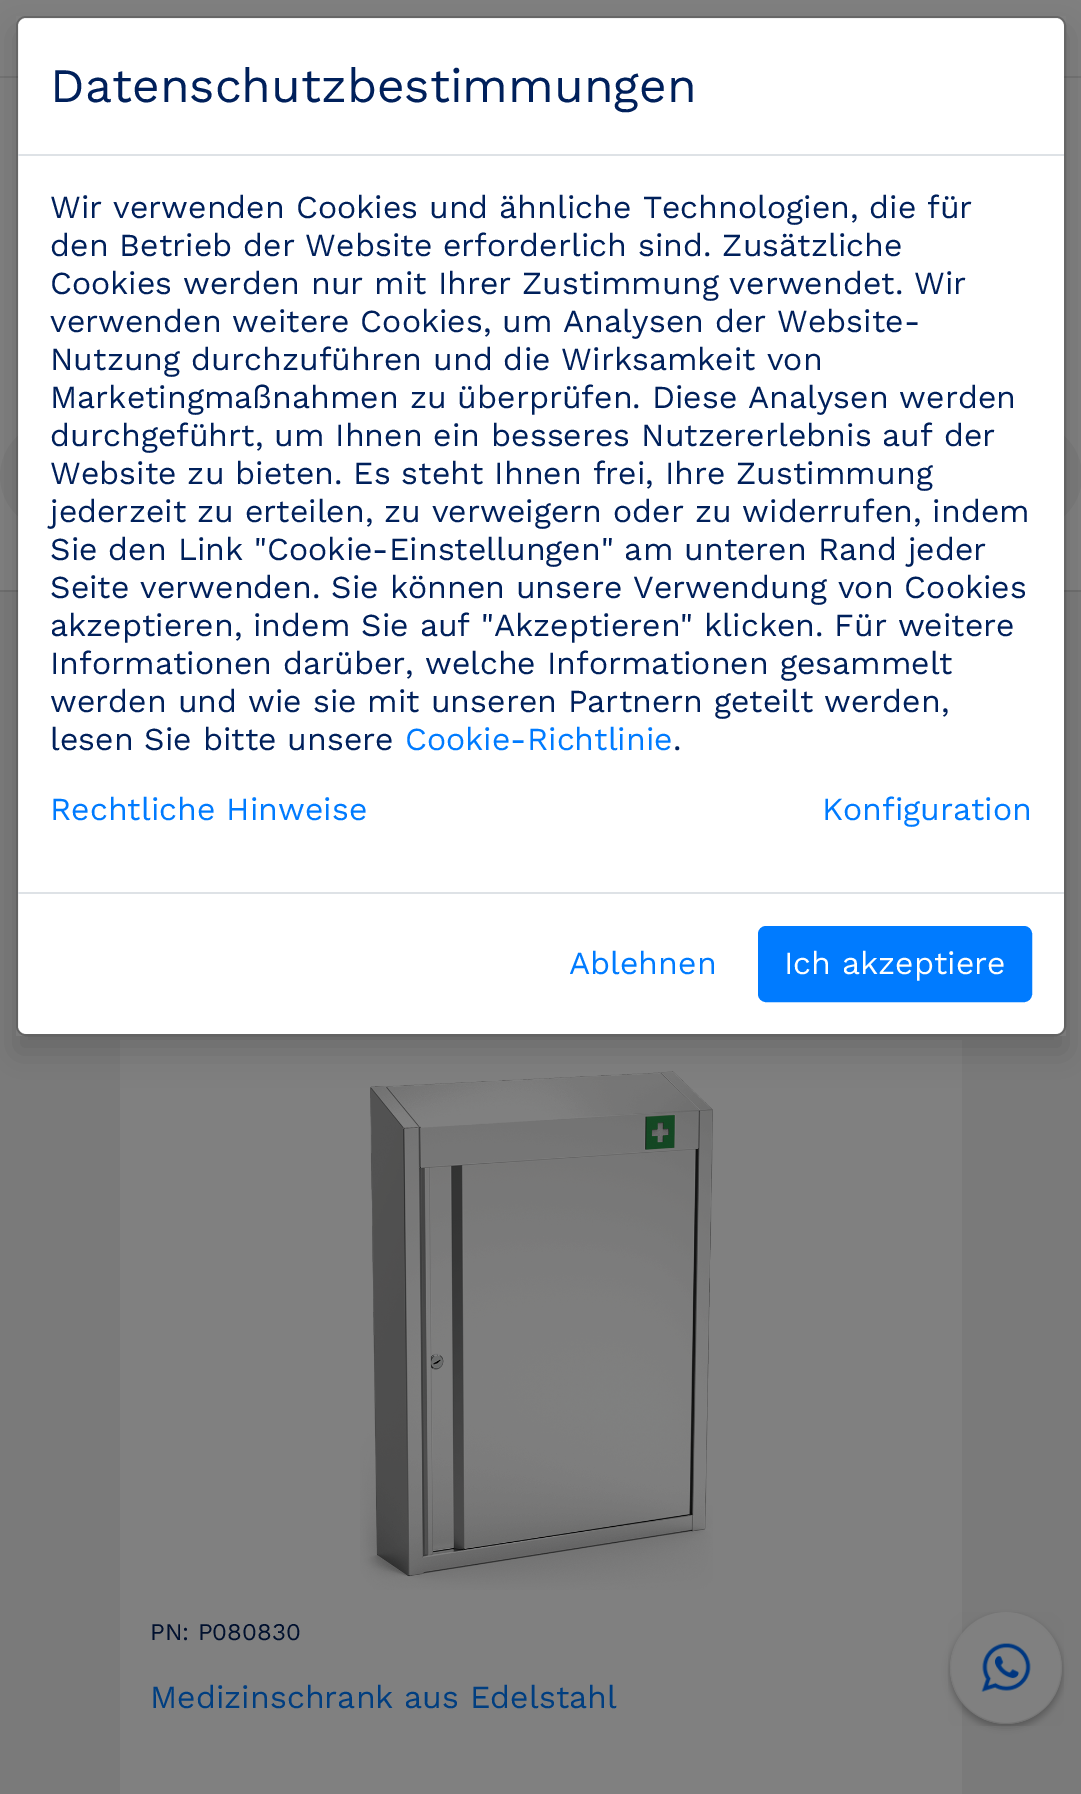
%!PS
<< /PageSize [1081 1794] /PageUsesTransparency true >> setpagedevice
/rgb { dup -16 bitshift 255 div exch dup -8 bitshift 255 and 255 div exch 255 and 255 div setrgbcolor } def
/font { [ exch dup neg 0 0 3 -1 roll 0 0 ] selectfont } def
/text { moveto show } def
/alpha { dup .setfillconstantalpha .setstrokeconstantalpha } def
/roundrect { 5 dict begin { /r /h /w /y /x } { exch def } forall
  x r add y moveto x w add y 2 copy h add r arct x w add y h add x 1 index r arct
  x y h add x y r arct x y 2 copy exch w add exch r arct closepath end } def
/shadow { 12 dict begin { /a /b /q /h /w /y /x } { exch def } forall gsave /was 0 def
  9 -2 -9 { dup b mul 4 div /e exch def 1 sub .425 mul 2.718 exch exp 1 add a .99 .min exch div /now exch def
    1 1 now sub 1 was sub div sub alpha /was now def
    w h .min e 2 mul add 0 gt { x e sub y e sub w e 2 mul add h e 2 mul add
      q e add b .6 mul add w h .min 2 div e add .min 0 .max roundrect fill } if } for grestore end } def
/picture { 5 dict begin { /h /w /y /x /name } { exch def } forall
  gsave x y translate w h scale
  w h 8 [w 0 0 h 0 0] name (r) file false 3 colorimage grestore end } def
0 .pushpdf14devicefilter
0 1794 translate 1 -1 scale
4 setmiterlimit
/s1 { /WorkSans-Regular 48 font 16#00205B rgb } def
/s2 { /WorkSans-Regular 32 font 16#00205B rgb } def
/s3 { /WorkSans-Regular 32 font 16#007BFF rgb } def
/s4 { /WorkSans-Regular 32 font 16#FFFFFF rgb } def
/s5 { /WorkSans-Regular 24 font 16#00102E rgb } def
/s6 { /WorkSans-Regular 32 font 16#003E80 rgb } def
16#7A7A7A rgb
0 0 1081 1794 rectfill
0.1 alpha
16#000000 rgb
0 590 1081 2 rectfill
1 alpha
16#808080 rgb
0 0 1081 590 rectfill
16#737373 rgb
0 76 1081 2 rectfill
16#7A7A7A rgb
0 422 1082 108 54 roundrect fill
16#808080 rgb
120 1040 842 754 rectfill
(pic1.raw) 360 1071 353 519 picture
gsave
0 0 moveto 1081 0 lineto 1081 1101 lineto 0 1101 lineto closepath 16 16 moveto 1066 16 lineto 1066 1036 lineto 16 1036 lineto closepath eoclip newpath
16#000000 rgb
16 32 1050 1020 0 16 0.15 shadow
grestore
16#FFFFFF rgb
18 18 1046 1016 8 roundrect fill
0.2 alpha
16#000000 rgb
2 setlinewidth
17 17 1048 1018 9 roundrect stroke
1 alpha
16#DEE2E6 rgb
18 154 1046 2 rectfill
s1
(Datenschutzbestimmungen) 50 102 text
s2
(Wir verwenden Cookies und ähnliche Technologien, die für) 50 218 text
(den Betrieb der Website erforderlich sind. Zusätzliche) 50 256 text
(Cookies werden nur mit Ihrer Zustimmung verwendet. Wir) 50 294 text
(verwenden weitere Cookies, um Analysen der Website-) 50 332 text
(Nutzung durchzuführen und die Wirksamkeit von) 50 370 text
(Marketingmaßnahmen zu überprüfen. Diese Analysen werden) 50 408 text
(durchgeführt, um Ihnen ein besseres Nutzererlebnis auf der) 50 446 text
(Website zu bieten. Es steht Ihnen frei, Ihre Zustimmung) 50 484 text
(jederzeit zu erteilen, zu verweigern oder zu widerrufen, indem) 50 522 text
(Sie den Link "Cookie-Einstellungen" am unteren Rand jeder) 50 560 text
(Seite verwenden. Sie können unsere Verwendung von Cookies) 50 598 text
(akzeptieren, indem Sie auf "Akzeptieren" klicken. Für weitere) 50 636 text
(Informationen darüber, welche Informationen gesammelt) 50 674 text
(werden und wie sie mit unseren Partnern geteilt werden,) 50 712 text
(lesen Sie bitte unsere) 50 750 text
s3
(Cookie-Richtlinie) 405 750 text
s2
(.) 673 750 text
s3
(Rechtliche Hinweise) 50 820 text
(Konfiguration) 822 820 text
16#DEE2E6 rgb
18 892 1046 2 rectfill
s3
(Ablehnen) 569 974 text
759 927 272 74 7 roundrect gsave fill grestore
stroke
s4
(Ich akzeptiere) 784 974 text
s5
(PN: P080830) 150 1640 text
s6
(Medizinschrank aus Edelstahl) 150 1708 text
16#000000 rgb
950 1616 112 112 56 4 0.16 shadow
(pic2.raw) 948 1612 116 114 picture
.poppdf14devicefilter showpage
